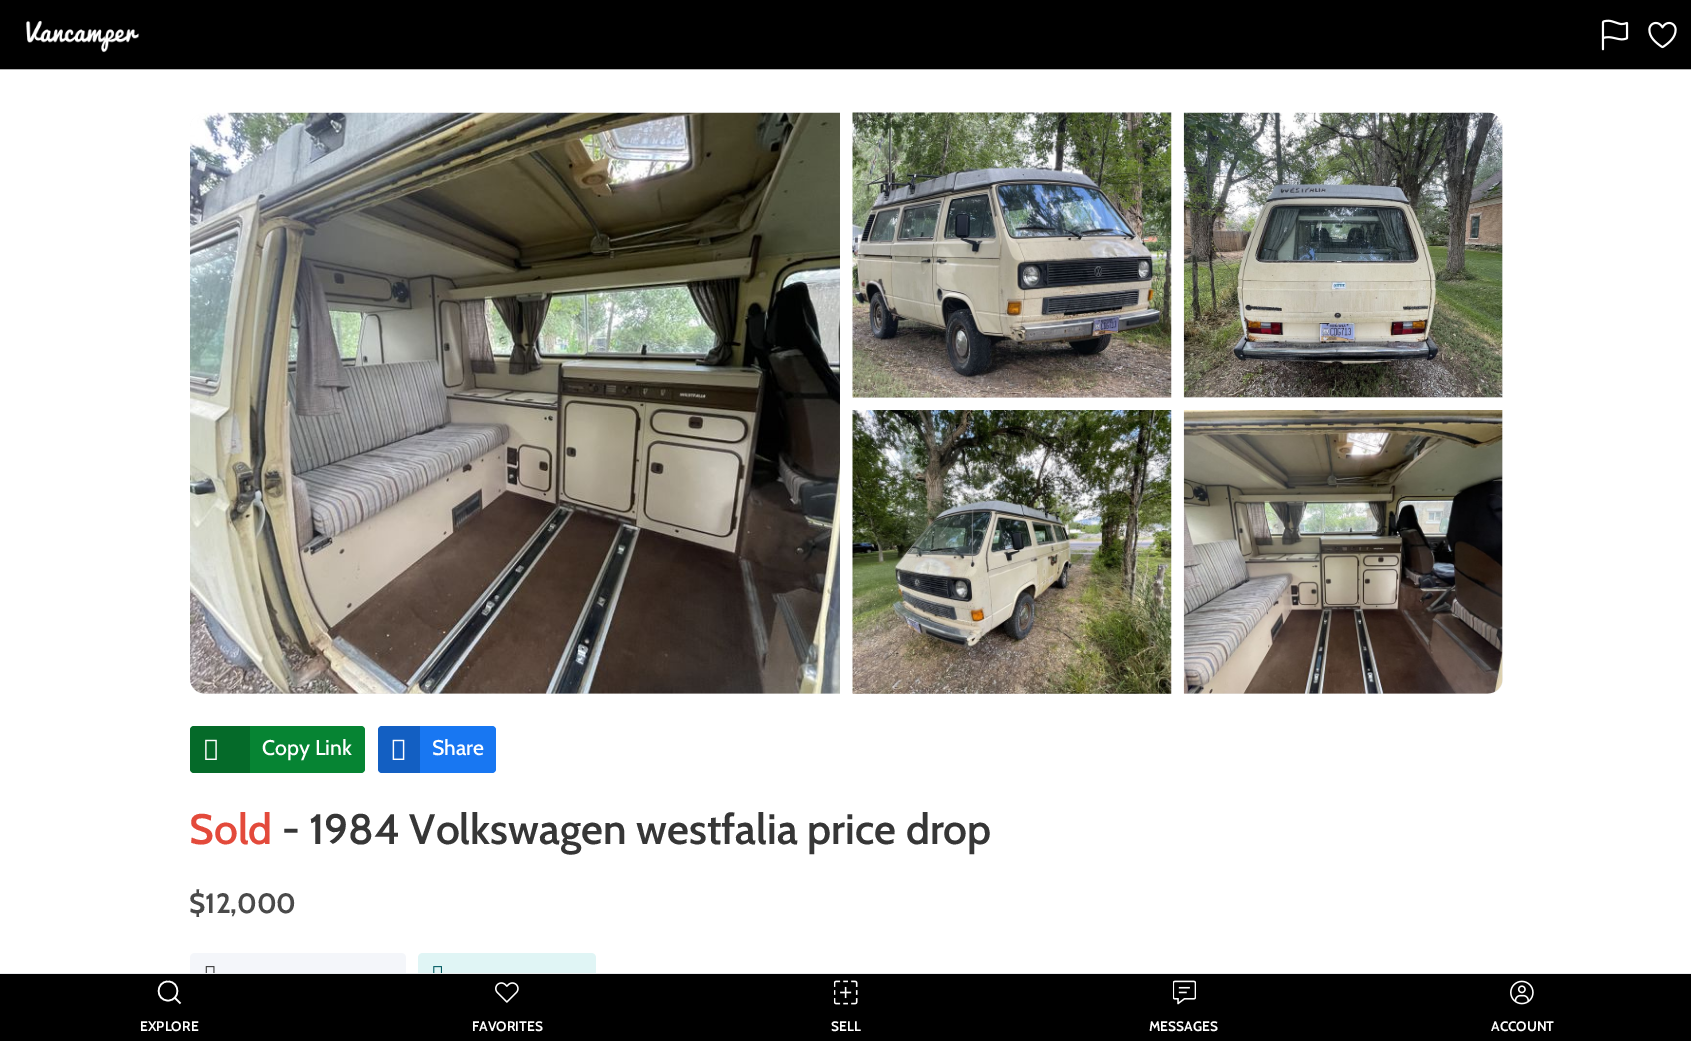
%!PS
<< /PageSize [1691 1041] /PageUsesTransparency true >> setpagedevice
/rgb { dup -16 bitshift 255 div exch dup -8 bitshift 255 and 255 div exch 255 and 255 div setrgbcolor } def
/font { [ exch dup neg 0 0 3 -1 roll 0 0 ] selectfont } def
/text { moveto show } def
/alpha { dup .setfillconstantalpha .setstrokeconstantalpha } def
/roundrect { 5 dict begin { /r /h /w /y /x } { exch def } forall
  x r add y moveto x w add y 2 copy h add r arct x w add y h add x 1 index r arct
  x y h add x y r arct x y 2 copy exch w add exch r arct closepath end } def
/picture { 5 dict begin { /h /w /y /x /name } { exch def } forall
  gsave x y translate w h scale
  w h 8 [w 0 0 h 0 0] name (r) file false 3 colorimage grestore end } def
0 .pushpdf14devicefilter
0 1041 translate 1 -1 scale
4 setmiterlimit
/s1 { /Cabin-Medium 21.25 font 16#FFFFFF rgb } def
/s2 { /Cabin-SemiBold 42.5 font 16#E34A3B rgb } def
/s3 { /Cabin-SemiBold 42.5 font 16#363636 rgb } def
/s4 { /Cabin-Bold 28 font 16#4A4A4A rgb } def
/s5 { /Cabin-Bold 13.75 font 16#FFFFFF rgb } def
16#FFFFFF rgb
0 0 1691 1041 rectfill
16#000000 rgb
0 0 1691 69 rectfill
16#B2B2B2 rgb
0 69 1691 1 rectfill
(pic1.raw) 26 20 114 33 picture
(pic2.raw) 1601 19 28 32 picture
(pic3.raw) 1648 21 29 28 picture
gsave 205 113 moveto 840 113 lineto 840 694 lineto 205 694 lineto 196.5 694 190 687.5 190 679 curveto 190 128 lineto 190 119.5 196.5 113 205 113 curveto closepath clip newpath
<< /ShadingType 2 /ColorSpace /DeviceRGB /Coords [190 403 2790 403] /Extend [true true] /Function << /FunctionType 3 /Domain [0 1] /Functions [<< /FunctionType 2 /Domain [0 1] /C0 [0.918 0.918 0.918] /C1 [0.918 0.918 0.918] /N 1 >> << /FunctionType 2 /Domain [0 1] /C0 [0.918 0.918 0.918] /C1 [0.961 0.961 0.961] /N 1 >> << /FunctionType 2 /Domain [0 1] /C0 [0.961 0.961 0.961] /C1 [0.859 0.859 0.859] /N 1 >> << /FunctionType 2 /Domain [0 1] /C0 [0.859 0.859 0.859] /C1 [0.859 0.859 0.859] /N 1 >>] /Bounds [0.15 0.4 0.65] /Encode [0 1 0 1 0 1 0 1] >> >> shfill grestore
(pic4.raw) 190 112 650 582 picture
gsave 853 397 moveto 1171 397 lineto 1171 398 lineto 853 398 lineto closepath clip newpath
<< /ShadingType 2 /ColorSpace /DeviceRGB /Coords [853 255 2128 255] /Extend [true true] /Function << /FunctionType 3 /Domain [0 1] /Functions [<< /FunctionType 2 /Domain [0 1] /C0 [0.918 0.918 0.918] /C1 [0.918 0.918 0.918] /N 1 >> << /FunctionType 2 /Domain [0 1] /C0 [0.918 0.918 0.918] /C1 [0.961 0.961 0.961] /N 1 >> << /FunctionType 2 /Domain [0 1] /C0 [0.961 0.961 0.961] /C1 [0.859 0.859 0.859] /N 1 >> << /FunctionType 2 /Domain [0 1] /C0 [0.859 0.859 0.859] /C1 [0.859 0.859 0.859] /N 1 >>] /Bounds [0.15 0.4 0.65] /Encode [0 1 0 1 0 1 0 1] >> >> shfill grestore
(pic5.raw) 852 112 320 286 picture
gsave 1184 113 moveto 1488 113 lineto 1496.5 113 1503 119.5 1503 128 curveto 1503 398 lineto 1184 398 lineto closepath clip newpath
<< /ShadingType 2 /ColorSpace /DeviceRGB /Coords [1184 255 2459 255] /Extend [true true] /Function << /FunctionType 3 /Domain [0 1] /Functions [<< /FunctionType 2 /Domain [0 1] /C0 [0.918 0.918 0.918] /C1 [0.918 0.918 0.918] /N 1 >> << /FunctionType 2 /Domain [0 1] /C0 [0.918 0.918 0.918] /C1 [0.961 0.961 0.961] /N 1 >> << /FunctionType 2 /Domain [0 1] /C0 [0.961 0.961 0.961] /C1 [0.859 0.859 0.859] /N 1 >> << /FunctionType 2 /Domain [0 1] /C0 [0.859 0.859 0.859] /C1 [0.859 0.859 0.859] /N 1 >>] /Bounds [0.15 0.4 0.65] /Encode [0 1 0 1 0 1 0 1] >> >> shfill grestore
(pic6.raw) 1183 112 320 286 picture
(pic7.raw) 852 410 320 284 picture
gsave 1184 410 moveto 1503 410 lineto 1503 679 lineto 1503 687.5 1496.5 694 1488 694 curveto 1184 694 lineto closepath clip newpath
<< /ShadingType 2 /ColorSpace /DeviceRGB /Coords [1184 552 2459 552] /Extend [true true] /Function << /FunctionType 3 /Domain [0 1] /Functions [<< /FunctionType 2 /Domain [0 1] /C0 [0.918 0.918 0.918] /C1 [0.918 0.918 0.918] /N 1 >> << /FunctionType 2 /Domain [0 1] /C0 [0.918 0.918 0.918] /C1 [0.961 0.961 0.961] /N 1 >> << /FunctionType 2 /Domain [0 1] /C0 [0.961 0.961 0.961] /C1 [0.859 0.859 0.859] /N 1 >> << /FunctionType 2 /Domain [0 1] /C0 [0.859 0.859 0.859] /C1 [0.859 0.859 0.859] /N 1 >>] /Bounds [0.15 0.4 0.65] /Encode [0 1 0 1 0 1 0 1] >> >> shfill grestore
(pic8.raw) 1183 410 320 284 picture
16#068433 rgb
190 726 175 47 4 roundrect fill
0.2 alpha
16#000000 rgb
194 726 moveto 250 726 lineto 250 773 lineto 194 773 lineto 192 773 190 771 190 769 curveto 190 730 lineto 190 728 192 726 194 726 curveto closepath fill
1 alpha
(pic9.raw) 205 739 12 21 picture
s1
(Copy Link) 262 755 text
16#1877F2 rgb
378 726 118 47 4 roundrect fill
0.2 alpha
16#000000 rgb
382 726 moveto 420 726 lineto 420 773 lineto 382 773 lineto 380 773 378 771 378 769 curveto 378 730 lineto 378 728 380 726 382 726 curveto closepath fill
1 alpha
(pic10.raw) 392 739 13 21 picture
s1
(Share) 432 755 text
s2
(Sold) 189 844 text
s3
(- 1984 Volkswagen westfalia price drop) 282 844 text
s4
($12,000) 189 913 text
16#F4F6FA rgb
195 953 moveto 401 953 lineto 404 953 406 955 406 958 curveto 406 986 lineto 190 986 lineto 190 958 lineto 190 955 192 953 195 953 curveto closepath fill
(pic11.raw) 205 966 10 7 picture
16#E0F5F5 rgb
423 953 moveto 591 953 lineto 594 953 596 955 596 958 curveto 596 986 lineto 418 986 lineto 418 958 lineto 418 955 420 953 423 953 curveto closepath fill
(pic12.raw) 433 966 9 7 picture
16#000000 rgb
0 974 1691 67 rectfill
16#EAECEF rgb
0 973 1691 1 rectfill
16#FFFFFF rgb
1.6 setlinewidth
180.5 1003.5 moveto 174 997 lineto 168 1000.5 moveto 155.5 1000.5 155.5 981.5 168 981.5 curveto 180.5 981.5 180.5 1000.5 168 1000.5 curveto closepath stroke
s5
(EXPLORE) 140 1031 text
(pic13.raw) 495 982 24 21 picture
(FAVORITES) 472 1031 text
(pic14.raw) 834 980 24 25 picture
(SELL) 831 1031 text
(pic15.raw) 1173 980 23 25 picture
(MESSAGES) 1149 1031 text
(pic16.raw) 1510 980 24 25 picture
(ACCOUNT) 1491 1031 text
.poppdf14devicefilter showpage
